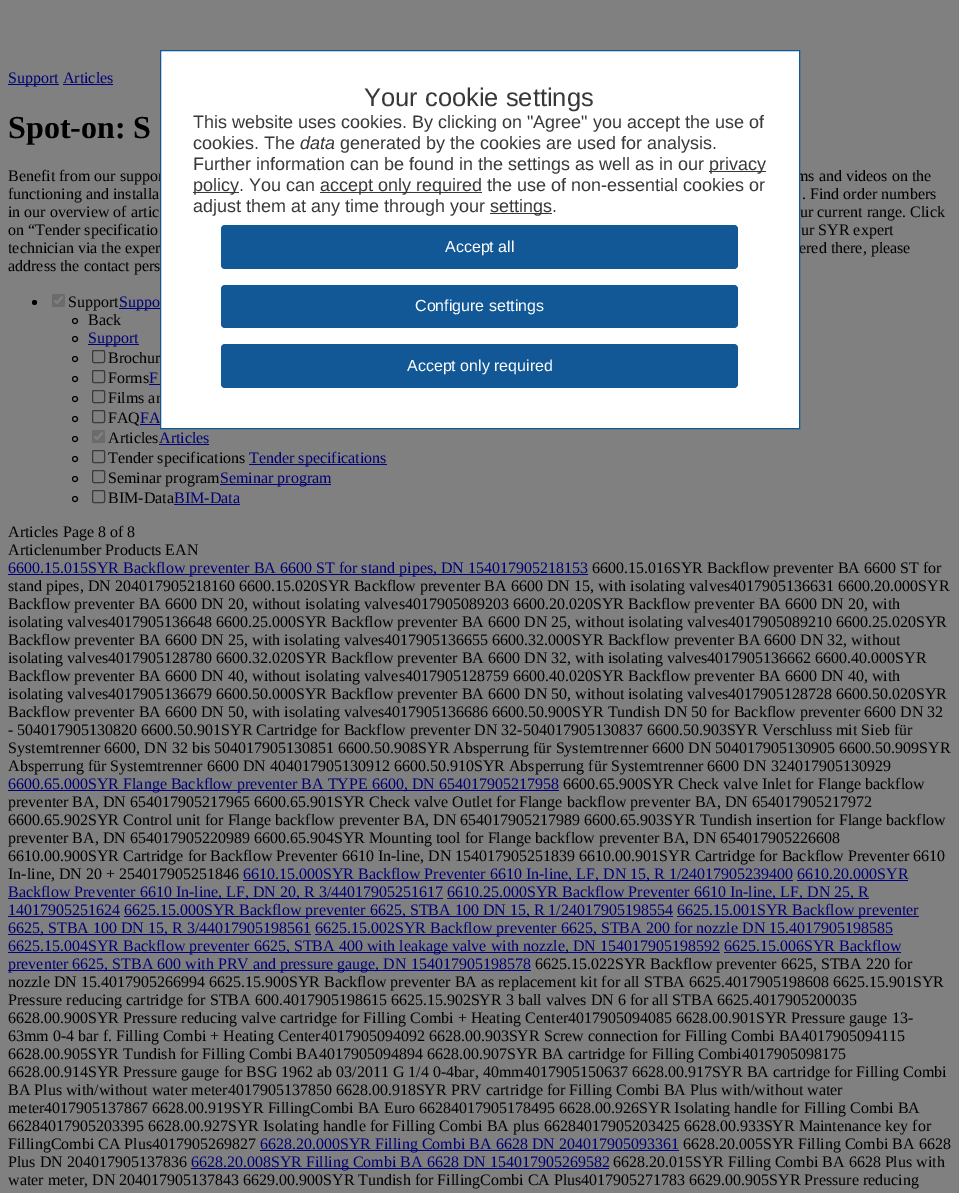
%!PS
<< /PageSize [959 1193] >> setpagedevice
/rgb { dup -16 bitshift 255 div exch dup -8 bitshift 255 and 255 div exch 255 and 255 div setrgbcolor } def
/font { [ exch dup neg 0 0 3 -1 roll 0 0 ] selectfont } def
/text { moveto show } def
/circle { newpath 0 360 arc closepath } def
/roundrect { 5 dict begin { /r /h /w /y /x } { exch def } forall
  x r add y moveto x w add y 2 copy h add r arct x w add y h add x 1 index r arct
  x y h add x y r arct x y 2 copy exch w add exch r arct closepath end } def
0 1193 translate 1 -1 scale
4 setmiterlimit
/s1 { /LiberationSerif-Regular 16 font 16#000077 rgb } def
/s2 { /LiberationSerif-Bold 32 font 16#000000 rgb } def
/s3 { /LiberationSerif-Regular 16 font 16#000000 rgb } def
/s4 { /LiberationSans-Regular 25.5 font 16#383838 rgb } def
/s5 { /LiberationSans-Regular 18 font 16#383838 rgb } def
/s6 { /LiberationSans-Italic 18 font 16#383838 rgb } def
/s7 { /LiberationSans-Regular 16 font 16#FFFFFF rgb } def
16#808080 rgb
0 0 959 1193 rectfill
16#000077 rgb
8 84 51 1 rectfill
s1
(Support Articles) 8 83 text
63 84 50 1 rectfill
s2
(Spot-on: S) 8 138 text
s3
(Benefit from our suppor) 8 181 text
(ms and videos on the) 796 181 text
(functioning and installa) 8 199 text
(. Find order numbers) 802 199 text
(in our overview of artic) 8 217 text
(ur current range. Click) 800 217 text
(on “Tender specificatio) 8 235 text
(ur SYR expert) 801 235 text
(technician via the exper) 8 253 text
(ered there, please) 799 253 text
(address the contact pers) 8 271 text
34.5 302.5 2.5 circle fill
16#6B6B6B rgb
52 294 13 13 2 roundrect fill
16#808080 rgb
2.1 setlinewidth
54.5 300.5 moveto 57 303 lineto 62.5 296.5 lineto stroke
s3
(Support) 68 307 text
16#000077 rgb
119 308 41 1 rectfill
(Suppo) 119 307 text
16#000000 rgb
1 setlinewidth
75 321 2.5 circle stroke
(Back) 88 325 text
75 339 2.5 circle stroke
16#000077 rgb
88 344 51 1 rectfill
(Support) 88 343 text
16#000000 rgb
75 359 2.5 circle stroke
16#3B3B3B rgb
92.5 350.5 12 12 1.5 roundrect stroke
s3
(Brochur) 108 363 text
75 379 2.5 circle stroke
16#3B3B3B rgb
92.5 370.5 12 12 1.5 roundrect stroke
s3
(Forms) 108 383 text
s1
(F) 149 383 text
149 384 11 1 rectfill
16#000000 rgb
75 399 2.5 circle stroke
16#3B3B3B rgb
92.5 390.5 12 12 1.5 roundrect stroke
s3
(Films an) 108 403 text
75 419 2.5 circle stroke
16#3B3B3B rgb
92.5 410.5 12 12 1.5 roundrect stroke
s3
(FAQ) 108 423 text
s1
(FA) 140 423 text
140 424 20 1 rectfill
16#000000 rgb
75 439 2.5 circle stroke
16#6B6B6B rgb
92 430 13 13 2 roundrect fill
16#808080 rgb
2.1 setlinewidth
94.5 436.5 moveto 97 439 lineto 102.5 432.5 lineto stroke
s3
(Articles) 108 443 text
s1
(Articles) 159 443 text
159 444 50 1 rectfill
16#000000 rgb
1 setlinewidth
75 459 2.5 circle stroke
16#3B3B3B rgb
92.5 450.5 12 12 1.5 roundrect stroke
s3
(Tender specifications) 108 463 text
16#000077 rgb
249 464 138 1 rectfill
(Tender specifications) 249 463 text
16#000000 rgb
75 479 2.5 circle stroke
16#3B3B3B rgb
92.5 470.5 12 12 1.5 roundrect stroke
s3
(Seminar program) 108 483 text
16#000077 rgb
220 484 111 1 rectfill
(Seminar program) 220 483 text
16#000000 rgb
75 499 2.5 circle stroke
16#3B3B3B rgb
92.5 490.5 12 12 1.5 roundrect stroke
s3
(BIM-Data) 108 503 text
s1
(BIM-Data) 174 503 text
174 504 66 1 rectfill
s3
(Articles Page 8 of 8) 8 537 text
(Articlenumber Products EAN) 8 555 text
16#000077 rgb
8 574 580 1 rectfill
(6600.15.015SYR Backflow preventer BA 6600 ST for stand pipes, DN 154017905218153) 8 573 text
s3
(6600.15.016SYR Backflow preventer BA 6600 ST for) 592 573 text
(stand pipes, DN 204017905218160 6600.15.020SYR Backflow preventer BA 6600 DN 15, with isolating valves4017905136631 6600.20.000SYR) 8 591 text
(Backflow preventer BA 6600 DN 20, without isolating valves4017905089203 6600.20.020SYR Backflow preventer BA 6600 DN 20, with) 8 609 text
(isolating valves4017905136648 6600.25.000SYR Backflow preventer BA 6600 DN 25, without isolating valves4017905089210 6600.25.020SYR) 8 627 text
(Backflow preventer BA 6600 DN 25, with isolating valves4017905136655 6600.32.000SYR Backflow preventer BA 6600 DN 32, without) 8 645 text
(isolating valves4017905128780 6600.32.020SYR Backflow preventer BA 6600 DN 32, with isolating valves4017905136662 6600.40.000SYR) 8 663 text
(Backflow preventer BA 6600 DN 40, without isolating valves4017905128759 6600.40.020SYR Backflow preventer BA 6600 DN 40, with) 8 681 text
(isolating valves4017905136679 6600.50.000SYR Backflow preventer BA 6600 DN 50, without isolating valves4017905128728 6600.50.020SYR) 8 699 text
(Backflow preventer BA 6600 DN 50, with isolating valves4017905136686 6600.50.900SYR Tundish DN 50 for Backflow preventer 6600 DN 32) 8 717 text
(- 504017905130820 6600.50.901SYR Cartridge for Backflow preventer DN 32-504017905130837 6600.50.903SYR Verschluss mit Sieb für) 8 735 text
(Systemtrenner 6600, DN 32 bis 504017905130851 6600.50.908SYR Absperrung für Systemtrenner 6600 DN 504017905130905 6600.50.909SYR) 8 753 text
(Absperrung für Systemtrenner 6600 DN 404017905130912 6600.50.910SYR Absperrung für Systemtrenner 6600 DN 324017905130929) 8 771 text
16#000077 rgb
8 790 551 1 rectfill
(6600.65.000SYR Flange Backflow preventer BA TYPE 6600, DN 654017905217958) 8 789 text
s3
(6600.65.900SYR Check valve Inlet for Flange backflow) 563 789 text
(preventer BA, DN 654017905217965 6600.65.901SYR Check valve Outlet for Flange backflow preventer BA, DN 654017905217972) 8 807 text
(6600.65.902SYR Control unit for Flange backflow preventer BA, DN 654017905217989 6600.65.903SYR Tundish insertion for Flange backflow) 8 825 text
(preventer BA, DN 654017905220989 6600.65.904SYR Mounting tool for Flange backflow preventer BA, DN 654017905226608) 8 843 text
(6610.00.900SYR Cartridge for Backflow Preventer 6610 In-line, DN 154017905251839 6610.00.901SYR Cartridge for Backflow Preventer 6610) 8 861 text
(In-line, DN 20 + 254017905251846) 8 879 text
16#000077 rgb
243 880 550 1 rectfill
(6610.15.000SYR Backflow Preventer 6610 In-line, LF, DN 15, R 1/24017905239400 6610.20.000SYR) 243 879 text
8 898 435 1 rectfill
(Backflow Preventer 6610 In-line, LF, DN 20, R 3/44017905251617 6610.25.000) 8 897 text
797 880 111 1 rectfill
447 898 422 1 rectfill
(SYR Backflow Preventer 6610 In-line, LF, DN 25, R) 527 897 text
(14017905251624 6625.15.000) 8 915 text
8 916 112 1 rectfill
124 916 549 1 rectfill
(SYR Backflow preventer 6625, STBA 100 DN 15, R 1/24017905198554 6625.15.001) 204 915 text
677 916 242 1 rectfill
(SYR Backflow preventer) 757 915 text
8 934 303 1 rectfill
(6625, STBA 100 DN 15, R 3/44017905198561 6625.15.002) 8 933 text
315 934 578 1 rectfill
(SYR Backflow preventer 6625, STBA 200 for nozzle DN 15.4017905198585) 395 933 text
8 952 712 1 rectfill
(6625.15.004SYR Backflow preventer 6625, STBA 400 with leakage valve with nozzle, DN 154017905198592 6625.15.006SYR Backflow) 8 951 text
8 970 523 1 rectfill
(preventer 6625, STBA 600 with PRV and pressure gauge, DN 154017905198578) 8 969 text
724 952 177 1 rectfill
s3
(6625.15.022SYR Backflow preventer 6625, STBA 220 for) 535 969 text
(nozzle DN 15.4017905266994 6625.15.900SYR Backflow preventer BA as replacement kit for all STBA 6625.4017905198608 6625.15.901SYR) 8 987 text
(Pressure reducing cartridge for STBA 600.4017905198615 6625.15.902SYR 3 ball valves DN 6 for all STBA 6625.4017905200035) 8 1005 text
(6628.00.900SYR Pressure reducing valve cartridge for Filling Combi + Heating Center4017905094085 6628.00.901SYR Pressure gauge 13-) 8 1023 text
(63mm 0-4 bar f. Filling Combi + Heating Center4017905094092 6628.00.903SYR Screw connection for Filling Combi BA4017905094115) 8 1041 text
(6628.00.905SYR Tundish for Filling Combi BA4017905094894 6628.00.907SYR BA cartridge for Filling Combi4017905098175) 8 1059 text
(6628.00.914SYR Pressure gauge for BSG 1962 ab 03/2011 G 1/4 0-4bar, 40mm4017905150637 6628.00.917SYR BA cartridge for Filling Combi) 8 1077 text
(BA Plus with/without water meter4017905137850 6628.00.918SYR PRV cartridge for Filling Combi BA Plus with/without water) 8 1095 text
(meter4017905137867 6628.00.919SYR FillingCombi BA Euro 66284017905178495 6628.00.926SYR Isolating handle for Filling Combi BA) 8 1113 text
(66284017905203395 6628.00.927SYR Isolating handle for Filling Combi BA plus 66284017905203425 6628.00.933SYR Maintenance key for) 8 1131 text
(FillingCombi CA Plus4017905269827) 8 1149 text
16#000077 rgb
260 1150 419 1 rectfill
(6628.20.000SYR Filling Combi BA 6628 DN 204017905093361) 260 1149 text
s3
(6628.20.005SYR Filling Combi BA 6628) 683 1149 text
(Plus DN 204017905137836) 8 1167 text
16#000077 rgb
191 1168 418 1 rectfill
(6628.20.008SYR Filling Combi BA 6628 DN 154017905269582) 191 1167 text
s3
(6628.20.015SYR Filling Combi BA 6628 Plus with) 613 1167 text
(water meter, DN 204017905137843 6629.00.900SYR Tundish for FillingCombi CA Plus4017905271783 6629.00.905SYR Pressure reducing) 8 1185 text
16#FFFFFF rgb
160.5 50.5 moveto 799.5 50.5 lineto 799.5 428.5 lineto 160.5 428.5 lineto closepath gsave fill grestore
16#125896 rgb
stroke
s4
(Your cookie settings) 364 106 text
s5
(This website uses cookies. By clicking on "Agree" you accept the use of) 193 128 text
(cookies. The) 193 149 text
s6
(data) 300 149 text
s5
(generated by the cookies are used for analysis.) 340 149 text
(Further information can be found in the settings as well as in our) 193 170 text
709 171 57 1 rectfill
(privacy) 709 170 text
193 192 46 1 rectfill
(policy. You can) 193 191 text
320 192 162 1 rectfill
(accept only required) 320 191 text
(the use of non-essential cookies or) 487 191 text
(adjust them at any time through your) 193 212 text
490 213 62 1 rectfill
(settings.) 490 212 text
16#125896 rgb
221 225 517 44 4 roundrect fill
s7
(Accept all) 445 252 text
16#125896 rgb
221 285 517 43 4 roundrect fill
s7
(Configure settings) 415 311 text
16#125896 rgb
221 344 517 44 4 roundrect fill
s7
(Accept only required) 407 371 text
showpage
